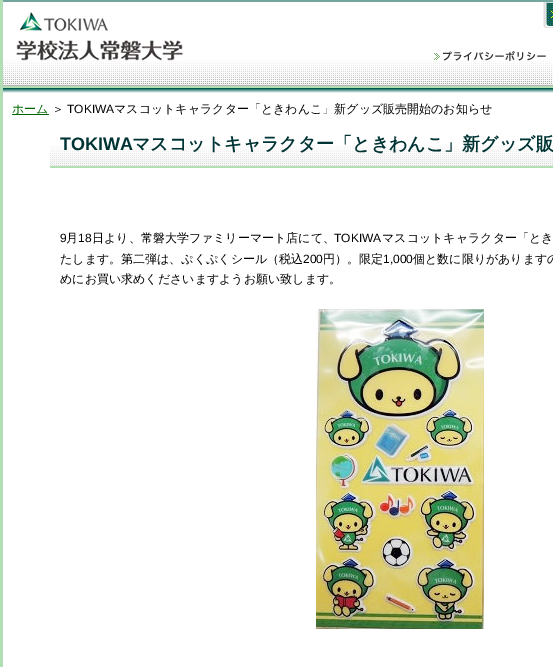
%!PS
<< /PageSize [553 667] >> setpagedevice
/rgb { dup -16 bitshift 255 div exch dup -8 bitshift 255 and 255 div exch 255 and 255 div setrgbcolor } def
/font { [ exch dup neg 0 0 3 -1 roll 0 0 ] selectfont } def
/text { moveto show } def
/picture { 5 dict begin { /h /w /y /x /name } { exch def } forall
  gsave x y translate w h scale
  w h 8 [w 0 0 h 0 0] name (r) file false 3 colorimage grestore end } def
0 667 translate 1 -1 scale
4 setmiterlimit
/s1 { /WenQuanYiZenHei-Medium 12 font 16#006600 rgb } def
/s2 { /WenQuanYiZenHei-Medium 12 font 16#000000 rgb } def
/s3 { /LiberationSans-Regular 12 font 16#000000 rgb } def
/s4 { /LiberationSans-Bold 18 font 16#003333 rgb } def
/s5 { /WenQuanYiZenHei-Bold 18 font 16#003333 rgb } def
16#FFFFFF rgb
0 0 553 667 rectfill
16#B2DEB4 rgb
0 0 3 667 rectfill
(pic1.raw) 3 0 550 93 picture
(pic2.raw) 16 12 167 49 picture
(pic3.raw) 543 2 10 26 picture
(pic4.raw) 434 53 6 7 picture
(pic5.raw) 443 51 103 10 picture
16#006600 rgb
12 114 37 1 rectfill
s1
(ホーム) 12 113 text
s2
(＞) 52 113 text
s3
(TOKIWA) 67 113 text
s2
(マスコットキャラクター「ときわんこ」新グッズ販売開始のお知らせ) 114 113 text
(pic6.raw) 50 145 503 23 picture
s4
(TOKIWA) 60 150 text
s5
(マスコットキャラクター「ときわんこ」新グッズ販) 132 150 text
s3
(9) 60 242 text
s2
(月) 66 242 text
s3
(18) 78 242 text
s2
(日より、常磐大学ファミリーマート店にて、) 92 242 text
s3
(TOKIWA) 334 242 text
s2
(マスコットキャラクター「とき) 382 242 text
(たします。第二弾は、ぷくぷくシール（税込) 60 263 text
s3
(200) 303 263 text
s2
(円）。限定) 323 263 text
s3
(1,000) 383 263 text
s2
(個と数に限りがありますの) 413 263 text
(めにお買い求めくださいますようお願い致します。) 60 283 text
(pic7.raw) 316 309 168 320 picture
showpage
